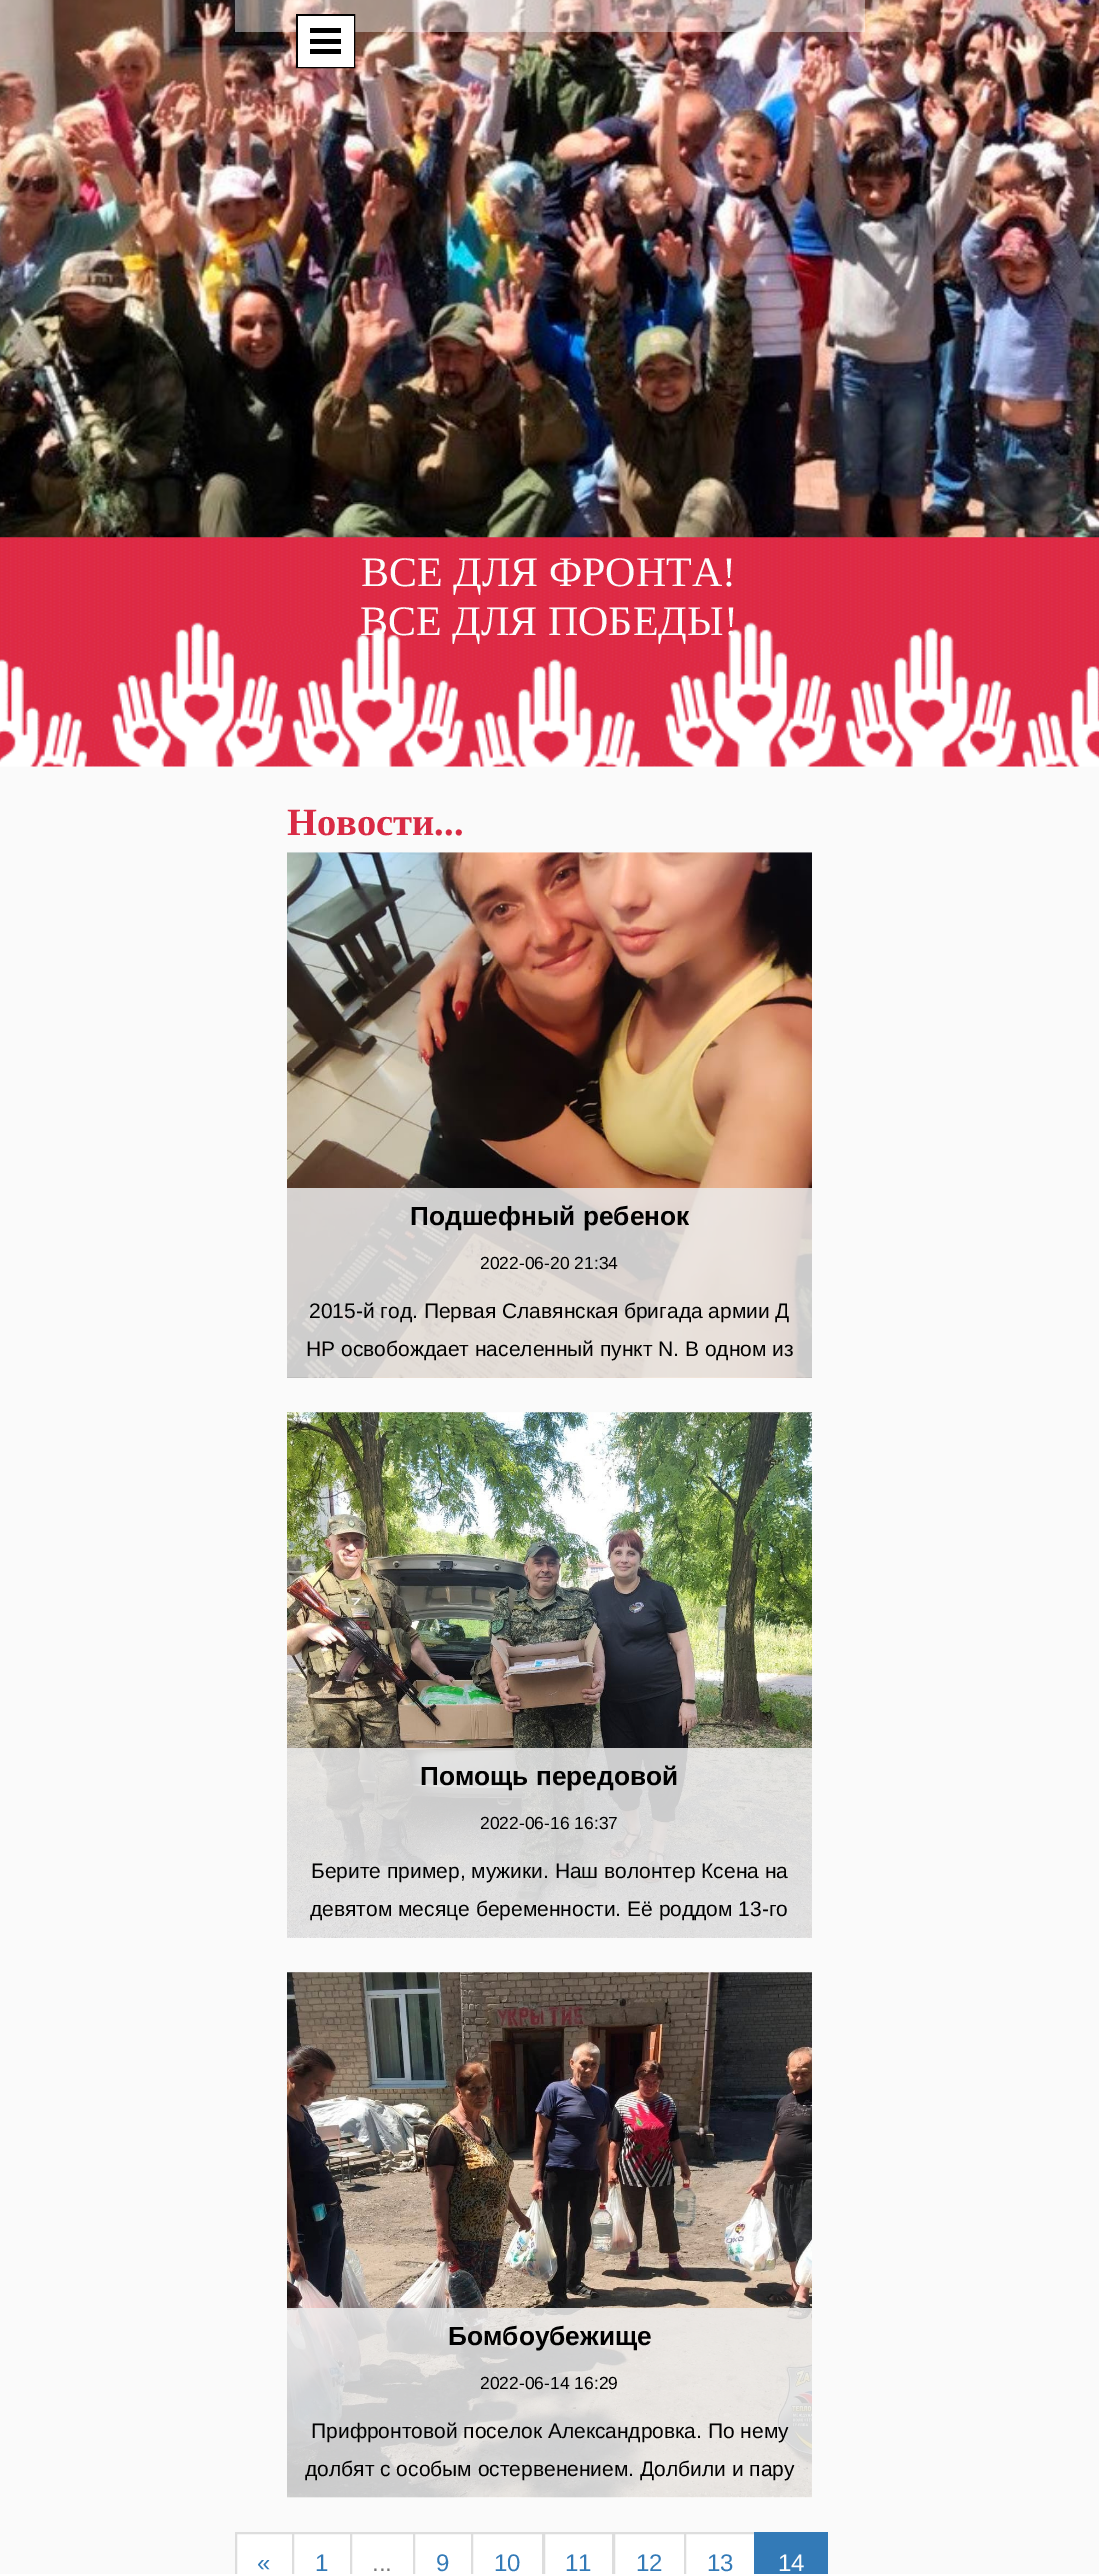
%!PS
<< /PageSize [1099 2574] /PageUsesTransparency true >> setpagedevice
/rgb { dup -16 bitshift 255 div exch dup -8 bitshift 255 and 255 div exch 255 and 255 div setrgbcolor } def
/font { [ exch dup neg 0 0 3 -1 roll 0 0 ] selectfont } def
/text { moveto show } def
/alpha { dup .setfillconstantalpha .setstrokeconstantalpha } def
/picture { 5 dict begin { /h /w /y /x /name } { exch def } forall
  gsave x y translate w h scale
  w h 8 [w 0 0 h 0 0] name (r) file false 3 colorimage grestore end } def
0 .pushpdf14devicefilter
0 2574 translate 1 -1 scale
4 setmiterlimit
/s1 { /LiberationSerif-Regular 42 font 16#FCFCFC rgb } def
/s2 { /LiberationSerif-Bold 38.5 font 16#D92B45 rgb } def
/s3 { /LiberationSans-Bold 26.25 font 16#000000 rgb } def
/s4 { /LiberationSans-Regular 17.5 font 16#000000 rgb } def
/s5 { /LiberationSans-Regular 21 font 16#000000 rgb } def
/s6 { /LiberationSans-Regular 24 font 16#337AB7 rgb } def
/s7 { /LiberationSans-Regular 24 font 16#777777 rgb } def
/s8 { /LiberationSans-Regular 24 font 16#FCFCFC rgb } def
16#FAFAFA rgb
0 0 1099 2574 rectfill
(pic1.raw) 0 537 1099 230 picture
(pic2.raw) 0 0 1099 538 picture
(pic3.raw) 350 503 457 1 picture
0.41 alpha
16#FFFFFF rgb
235 0 630 32 rectfill
1 alpha
16#000000 rgb
2 setlinewidth
297 15 57 52 rectstroke
16#FFFFFF rgb
298 16 56 51 rectfill
16#000000 rgb
310 28 31 5 rectfill
310 39 31 5 rectfill
310 49 31 5 rectfill
s1
(ВСЕ ДЛЯ ФРОНТА!) 361 586 text
(ВСЕ ДЛЯ ПОБЕДЫ!) 360 635 text
s2
(Новости...) 287 835 text
(pic4.raw) 287 852 525 526 picture
0.86 alpha
16#EBEBEB rgb
287 1188 525 189 rectfill
1 alpha
s3
(Подшефный ребенок) 410 1225 text
s4
(2022-06-20 21:34) 480 1269 text
s5
(2015-й год. Первая Славянская бригада армии Д) 309 1318 text
(НР освобождает населенный пункт N. В одном из) 306 1356 text
(pic5.raw) 287 1412 525 526 picture
0.86 alpha
16#EBEBEB rgb
287 1748 525 189 rectfill
1 alpha
s3
(Помощь передовой) 420 1785 text
s4
(2022-06-16 16:37) 480 1829 text
s5
(Берите пример, мужики. Наш волонтер Ксена на) 311 1878 text
(девятом месяце беременности. Её роддом 13-го) 310 1916 text
(pic6.raw) 287 1972 525 526 picture
0.86 alpha
16#EBEBEB rgb
287 2308 525 189 rectfill
1 alpha
s3
(Бомбоубежище) 448 2345 text
s4
(2022-06-14 16:29) 480 2389 text
s5
(Прифронтовой поселок Александровка. По нему) 311 2438 text
gsave
305 2412 490 77 rectclip
(долбят с особым остервенением. Долбили и пару) 305 2476 text
grestore
16#FFFFFF rgb
236 2533 moveto 293 2533 lineto 293 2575 lineto 236 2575 lineto closepath gsave fill grestore
16#DDDDDD rgb
stroke
s6
(«) 257 2571 text
16#FFFFFF rgb
293 2533 moveto 351 2533 lineto 351 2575 lineto 293 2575 lineto closepath gsave fill grestore
16#DDDDDD rgb
stroke
s6
(1) 315 2571 text
16#FFFFFF rgb
351 2533 moveto 414 2533 lineto 414 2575 lineto 351 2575 lineto closepath gsave fill grestore
16#DDDDDD rgb
stroke
s7
(...) 372 2571 text
16#FFFFFF rgb
414 2533 moveto 472 2533 lineto 472 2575 lineto 414 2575 lineto closepath gsave fill grestore
16#DDDDDD rgb
stroke
s6
(9) 436 2571 text
16#FFFFFF rgb
472 2533 moveto 543 2533 lineto 543 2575 lineto 472 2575 lineto closepath gsave fill grestore
16#DDDDDD rgb
stroke
s6
(10) 494 2571 text
16#FFFFFF rgb
544 2533 moveto 613 2533 lineto 613 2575 lineto 544 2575 lineto closepath gsave fill grestore
16#DDDDDD rgb
stroke
s6
(11) 565 2571 text
16#FFFFFF rgb
614 2533 moveto 685 2533 lineto 685 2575 lineto 614 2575 lineto closepath gsave fill grestore
16#DDDDDD rgb
stroke
s6
(12) 636 2571 text
16#FFFFFF rgb
685 2533 moveto 755 2533 lineto 755 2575 lineto 685 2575 lineto closepath gsave fill grestore
16#DDDDDD rgb
stroke
s6
(13) 707 2571 text
754 2532 74 42 rectfill
s8
(14) 778 2571 text
.poppdf14devicefilter showpage
